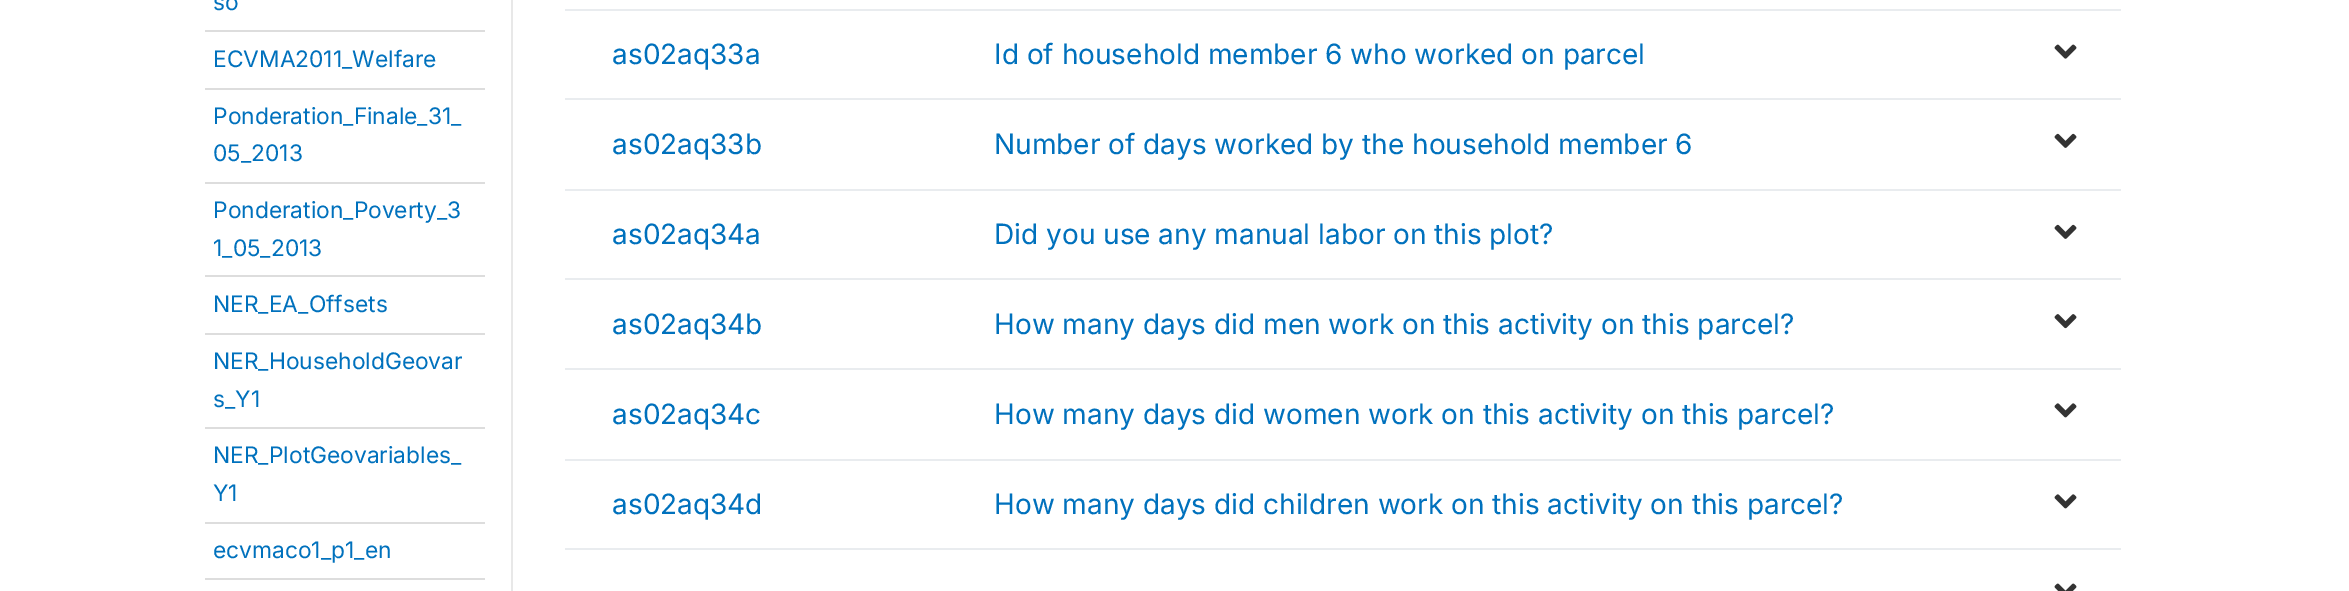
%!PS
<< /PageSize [2349 591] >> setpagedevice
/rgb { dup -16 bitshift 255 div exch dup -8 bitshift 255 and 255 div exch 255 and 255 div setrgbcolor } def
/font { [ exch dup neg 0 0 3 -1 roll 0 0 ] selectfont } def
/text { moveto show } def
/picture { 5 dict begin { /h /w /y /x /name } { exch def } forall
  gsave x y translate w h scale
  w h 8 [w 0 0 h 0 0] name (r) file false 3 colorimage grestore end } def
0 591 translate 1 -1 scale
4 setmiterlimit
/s1 { /Inter-Regular 22.75 font 16#0071BD rgb } def
/s2 { /Inter-Regular 28 font 16#0071BD rgb } def
16#FFFFFF rgb
0 0 2349 591 rectfill
s1
(so) 213 10 text
16#DDDDDD rgb
205 30 280 2 rectfill
s1
(ECVMA2011_Welfare) 213 67 text
16#DDDDDD rgb
205 88 280 2 rectfill
s1
(Ponderation_Finale_31_) 213 124 text
(05_2013) 213 161 text
16#DDDDDD rgb
205 182 280 2 rectfill
s1
(Ponderation_Poverty_3) 213 218 text
(1_05_2013) 213 256 text
16#DDDDDD rgb
205 275 280 2 rectfill
s1
(NER_EA_Offsets) 213 312 text
16#DDDDDD rgb
205 333 280 2 rectfill
s1
(NER_HouseholdGeovar) 213 369 text
(s_Y1) 213 407 text
16#DDDDDD rgb
205 427 280 2 rectfill
s1
(NER_PlotGeovariables_) 213 463 text
(Y1) 213 501 text
16#DDDDDD rgb
205 522 280 2 rectfill
s1
(ecvmaco1_p1_en) 213 558 text
16#DDDDDD rgb
205 578 280 2 rectfill
16#E8E8E8 rgb
511 0 2 591 rectfill
16#E9ECEF rgb
565 9 1556 2 rectfill
565 98 1556 2 rectfill
s2
(as02aq33a) 612 64 text
(Id of household member 6 who worked on parcel) 994 64 text
(pic1.raw) 2054 44 23 15 picture
16#E9ECEF rgb
565 189 1556 2 rectfill
s2
(as02aq33b) 612 154 text
(Number of days worked by the household member 6) 994 154 text
(pic2.raw) 2054 133 23 15 picture
16#E9ECEF rgb
565 278 1556 2 rectfill
s2
(as02aq34a) 612 244 text
(Did you use any manual labor on this plot?) 994 244 text
(pic2.raw) 2054 224 23 15 picture
16#E9ECEF rgb
565 368 1556 2 rectfill
s2
(as02aq34b) 612 334 text
(How many days did men work on this activity on this parcel?) 994 334 text
(pic3.raw) 2054 314 23 15 picture
16#E9ECEF rgb
565 459 1556 2 rectfill
s2
(as02aq34c) 612 424 text
(How many days did women work on this activity on this parcel?) 994 424 text
(pic4.raw) 2054 403 23 15 picture
16#E9ECEF rgb
565 548 1556 2 rectfill
s2
(as02aq34d) 612 514 text
(How many days did children work on this activity on this parcel?) 994 514 text
(pic4.raw) 2054 494 23 15 picture
(pic5.raw) 2054 583 23 8 picture
showpage
